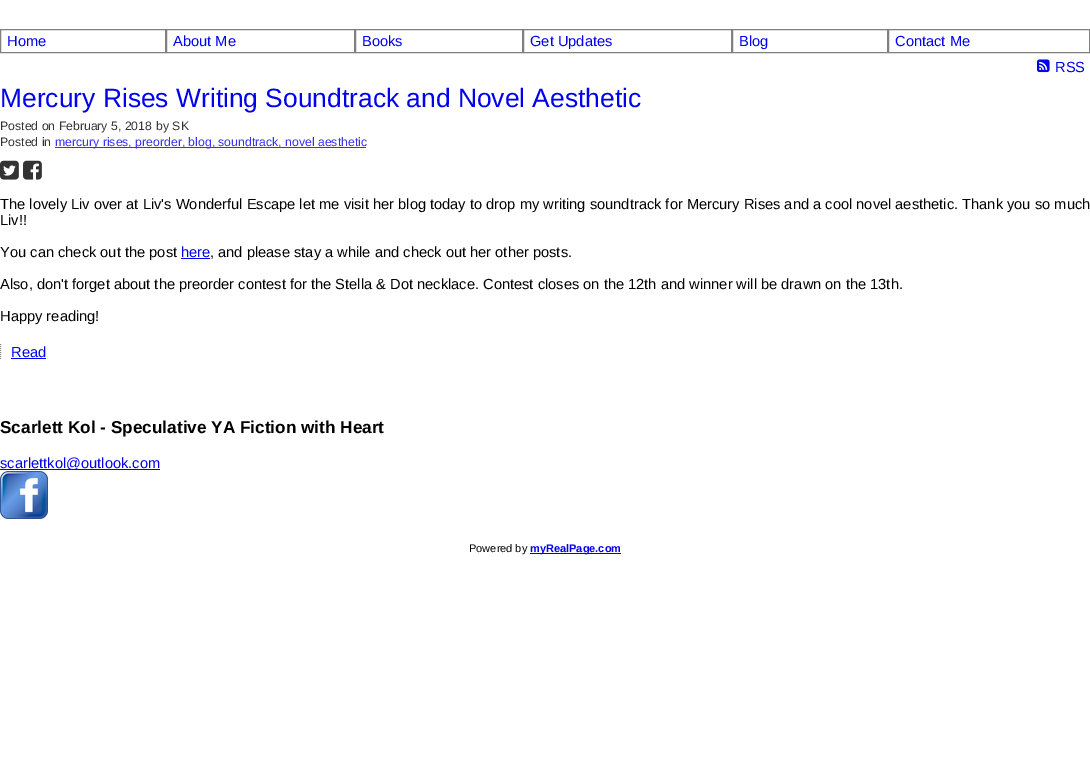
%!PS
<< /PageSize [1090 766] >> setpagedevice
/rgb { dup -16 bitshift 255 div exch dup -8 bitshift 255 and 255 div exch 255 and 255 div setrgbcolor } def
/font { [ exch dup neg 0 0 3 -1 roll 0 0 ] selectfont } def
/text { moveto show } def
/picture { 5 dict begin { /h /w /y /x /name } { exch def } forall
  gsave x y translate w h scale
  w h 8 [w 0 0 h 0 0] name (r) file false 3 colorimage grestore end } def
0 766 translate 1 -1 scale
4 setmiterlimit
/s1 { /LiberationSans-Regular 14.67 font 16#0000EE rgb } def
/s2 { /LiberationSans-Regular 26.4 font 16#0000EE rgb } def
/s3 { /LiberationSans-Regular 12.25 font 16#333333 rgb } def
/s4 { /LiberationSans-Regular 12.25 font 16#3333F1 rgb } def
/s5 { /LiberationSans-Regular 14.67 font 16#000000 rgb } def
/s6 { /LiberationSans-Bold 17.2 font 16#000000 rgb } def
/s7 { /LiberationSans-Regular 11 font 16#000000 rgb } def
/s8 { /LiberationSans-Bold 11 font 16#0000EE rgb } def
16#FFFFFF rgb
0 0 1090 766 rectfill
16#808080 rgb
0.5 29.5 165 23 rectstroke
s1
(Home) 7 46 text
16#808080 rgb
166.5 29.5 188 23 rectstroke
s1
(About Me) 173 46 text
16#808080 rgb
355.5 29.5 167 23 rectstroke
s1
(Books) 362 46 text
16#808080 rgb
523.5 29.5 208 23 rectstroke
s1
(Get Updates) 530 46 text
16#808080 rgb
732.5 29.5 155 23 rectstroke
s1
(Blog) 739 46 text
16#808080 rgb
888.5 29.5 201 23 rectstroke
s1
(Contact Me) 895 46 text
(pic1.raw) 1037 59 13 14 picture
(RSS) 1055 72 text
s2
(Mercury Rises Writing Soundtrack and Novel Aesthetic) 0 107 text
s3
(Posted on February 5, 2018) 0 130 text
(by SK) 156 130 text
(Posted in) 0 146 text
16#3333F1 rgb
55 147 311 1 rectfill
(mercury rises, preorder, blog, soundtrack, novel aesthetic) 55 146 text
(pic2.raw) 0 160 19 20 picture
(pic3.raw) 23 160 19 20 picture
s5
(The lovely Liv over at Liv's Wonderful Escape let me visit her blog today to drop my writing soundtrack for Mercury Rises and a cool novel aesthetic. Thank you so much) 0 209 text
(Liv!!) 0 225 text
(You can check out the post) 0 257 text
s1
(here) 181 257 text
181 258 29 1 rectfill
s5
(, and please stay a while and check out her other posts.) 210 257 text
(Also, don't forget about the preorder contest for the Stella & Dot necklace. Contest closes on the 12th and winner will be drawn on the 13th.) 0 289 text
(Happy reading!) 0 321 text
s1
(Read) 11 357 text
16#808080 rgb
[1 1] 0 setdash
0.5 344 moveto 0.5 360 lineto stroke
16#0000EE rgb
11 358 35 1 rectfill
s6
(Scarlett Kol - Speculative YA Fiction with Heart) 0 433 text
16#0000EE rgb
0 469 160 1 rectfill
s1
(scarlettkol@outlook.com) 0 468 text
(pic4.raw) 0 471 48 48 picture
s7
(Powered by) 469 552 text
16#0000EE rgb
530 553 91 1 rectfill
s8
(myRealPage.com) 530 552 text
showpage
